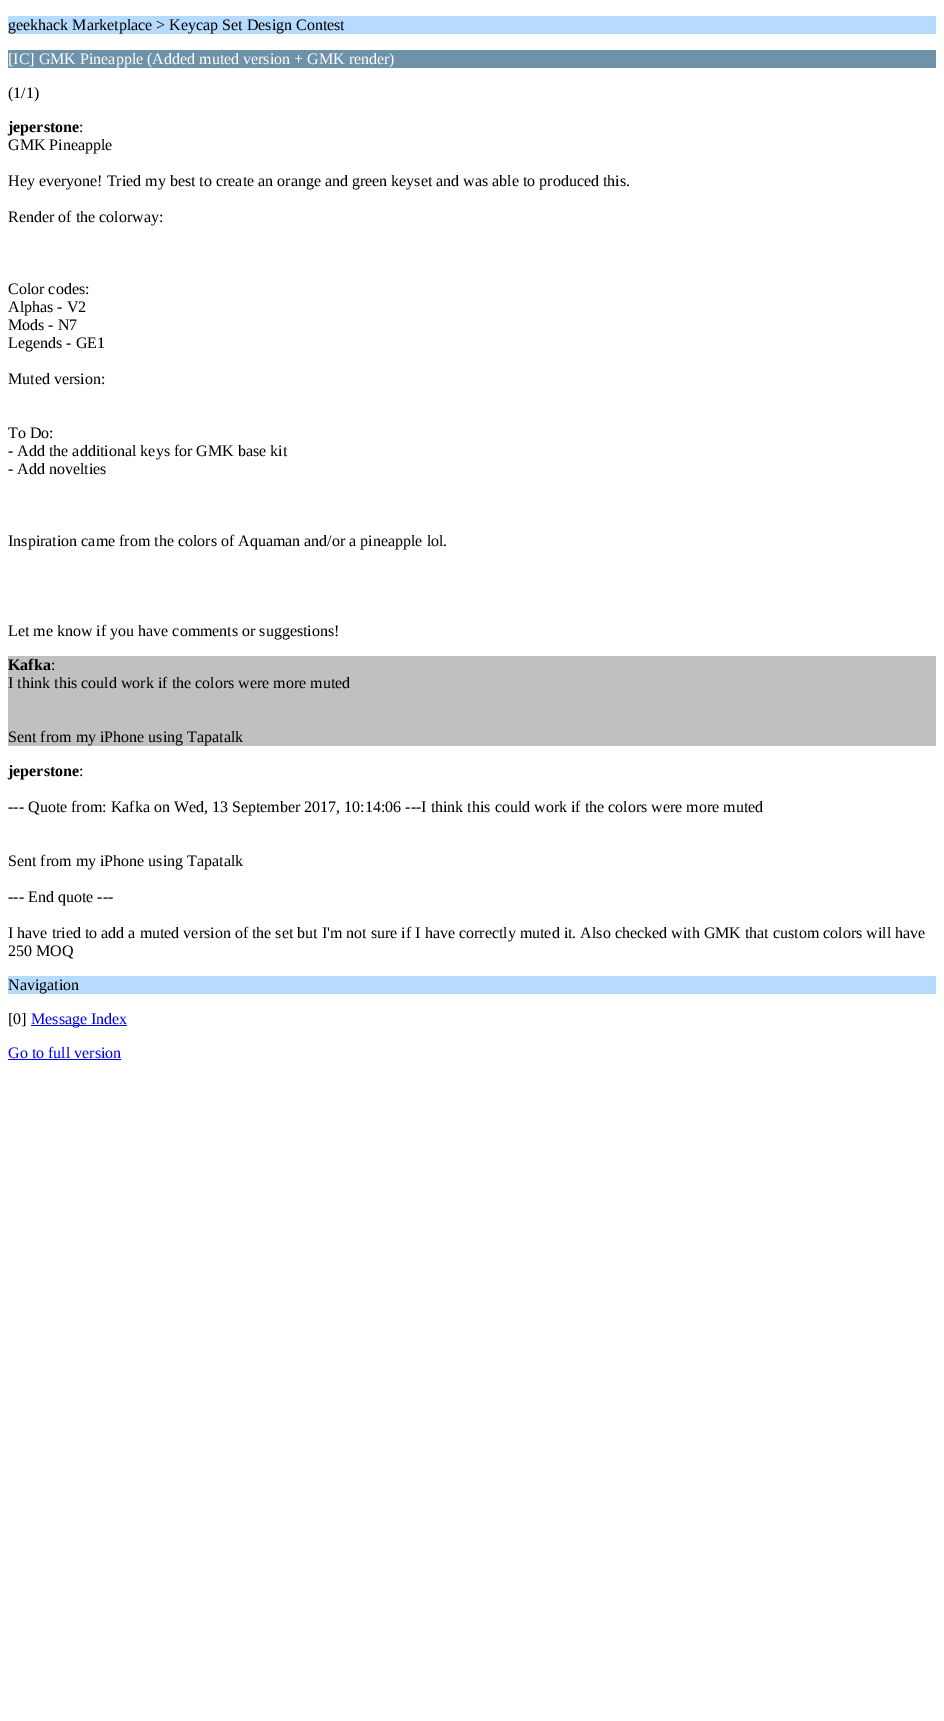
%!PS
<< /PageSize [944 1721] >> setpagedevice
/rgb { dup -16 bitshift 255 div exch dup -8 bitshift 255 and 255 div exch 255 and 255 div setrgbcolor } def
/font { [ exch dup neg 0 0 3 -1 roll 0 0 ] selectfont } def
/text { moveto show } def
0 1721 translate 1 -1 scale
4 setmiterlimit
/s1 { /LiberationSerif-Regular 16 font 16#000000 rgb } def
/s2 { /LiberationSerif-Regular 16 font 16#FFFFFF rgb } def
/s3 { /LiberationSerif-Bold 16 font 16#000000 rgb } def
/s4 { /LiberationSerif-Regular 16 font 16#0000EE rgb } def
16#FFFFFF rgb
0 0 944 1721 rectfill
16#B6DBFF rgb
8 16 928 18 rectfill
s1
(geekhack Marketplace > Keycap Set Design Contest) 8 30 text
16#6D92AA rgb
8 50 928 18 rectfill
s2
([IC] GMK Pineapple \(Added muted version + GMK render\)) 8 64 text
s1
(\(1/1\)) 8 98 text
s3
(jeperstone) 8 132 text
s1
(:) 79 132 text
(GMK Pineapple) 8 150 text
(Hey everyone! Tried my best to create an orange and green keyset and was able to produced this.) 8 186 text
(Render of the colorway:) 8 222 text
(Color codes:) 8 294 text
(Alphas - V2) 8 312 text
(Mods - N7) 8 330 text
(Legends - GE1) 8 348 text
(Muted version:) 8 384 text
(To Do:) 8 438 text
(- Add the additional keys for GMK base kit) 8 456 text
(- Add novelties) 8 474 text
(Inspiration came from the colors of Aquaman and/or a pineapple lol.) 8 546 text
(Let me know if you have comments or suggestions!) 8 636 text
16#C0C0C0 rgb
8 656 928 90 rectfill
s3
(Kafka) 8 670 text
s1
(:) 51 670 text
(I think this could work if the colors were more muted) 8 688 text
(Sent from my iPhone using Tapatalk) 8 742 text
s3
(jeperstone) 8 776 text
s1
(:) 79 776 text
(--- Quote from: Kafka on Wed, 13 September 2017, 10:14:06 ---I think this could work if the colors were more muted) 8 812 text
(Sent from my iPhone using Tapatalk) 8 866 text
(--- End quote ---) 8 902 text
(I have tried to add a muted version of the set but I'm not sure if I have correctly muted it. Also checked with GMK that custom colors will have) 8 938 text
(250 MOQ) 8 956 text
16#B6DBFF rgb
8 976 928 18 rectfill
s1
(Navigation) 8 990 text
([0]) 8 1024 text
16#0000EE rgb
31 1025 96 1 rectfill
(Message Index) 31 1024 text
(Go to full version) 8 1058 text
8 1059 113 1 rectfill
showpage
